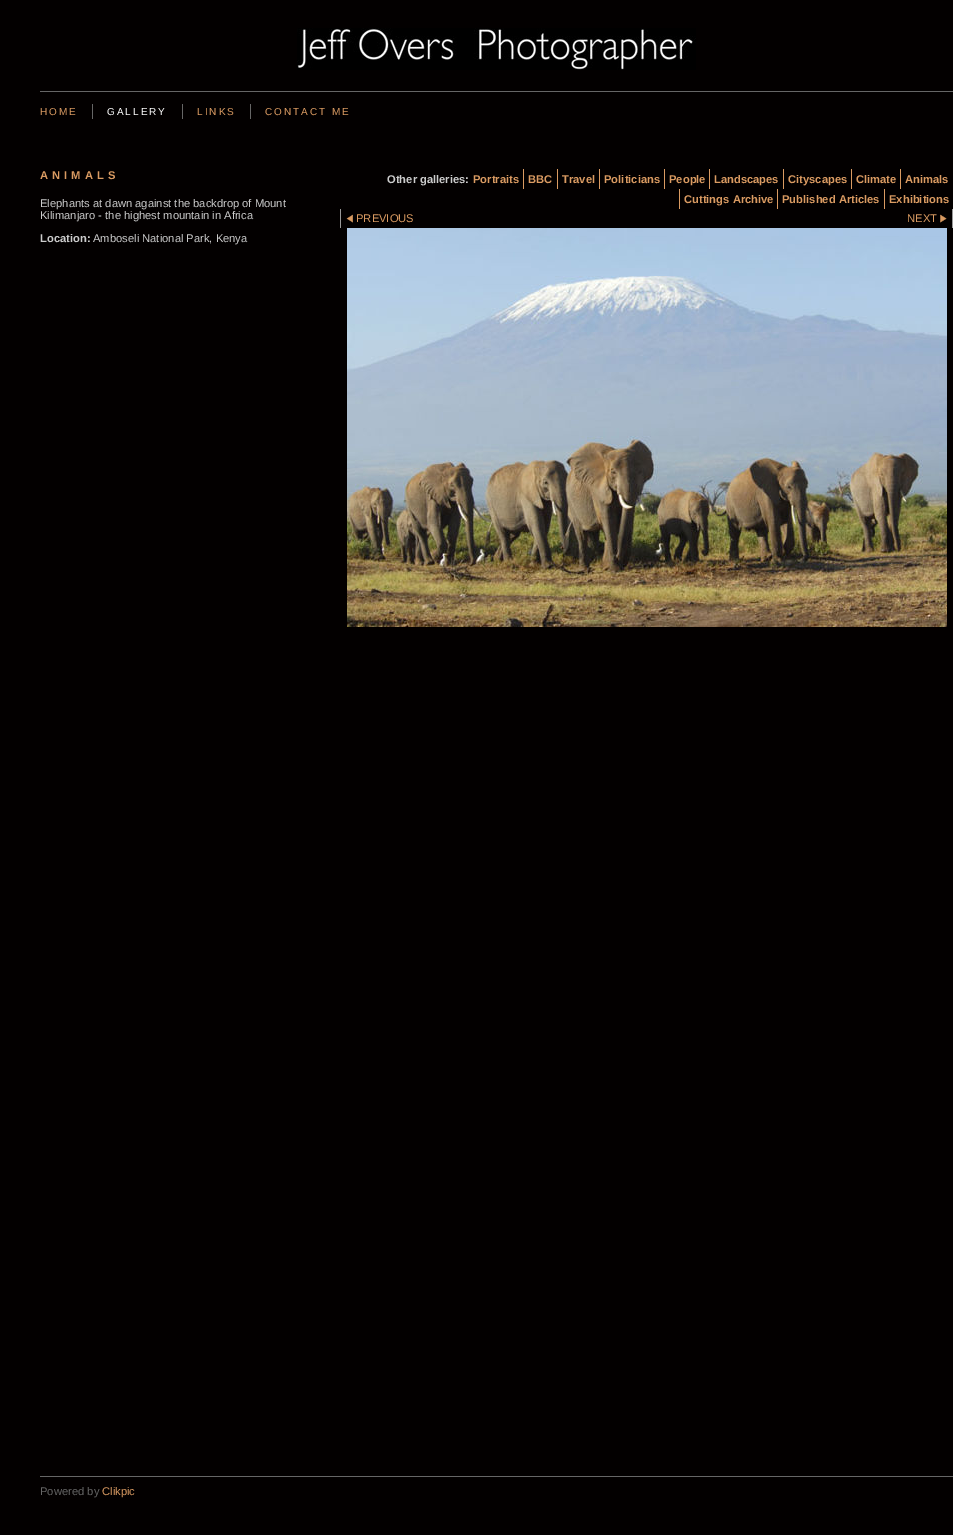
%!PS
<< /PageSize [953 1535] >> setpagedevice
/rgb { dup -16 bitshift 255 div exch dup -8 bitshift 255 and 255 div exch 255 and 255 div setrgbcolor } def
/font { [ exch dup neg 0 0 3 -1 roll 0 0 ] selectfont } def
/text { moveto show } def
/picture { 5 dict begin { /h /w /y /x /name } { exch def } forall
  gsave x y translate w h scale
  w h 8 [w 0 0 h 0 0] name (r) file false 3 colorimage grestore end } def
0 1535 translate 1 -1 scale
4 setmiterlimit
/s1 { /LiberationSans-Regular 11.2 font 16#CCCCCC rgb } def
/s2 { /LiberationSans-Bold 11.2 font 16#CCCCCC rgb } def
/s3 { /LiberationSans-Bold 11.2 font 16#DA9B62 rgb } def
/s4 { /LiberationSans-Regular 11.2 font 16#DA9B62 rgb } def
/s5 { /LiberationSans-Regular 11.2 font 16#666666 rgb } def
16#030000 rgb
0 0 953 1535 rectfill
16#666666 rgb
40 91 913 1 rectfill
(pic1.raw) 297 28 399 42 picture
/LiberationSans-Regular 10 font
16#DA9B62 rgb
40 115 moveto 2 0 (HOME) ashow
16#666666 rgb
92 104 1 15 rectfill
16#FFFFFF rgb
107 115 moveto 2 0 (GALLERY) ashow
16#666666 rgb
182 104 1 15 rectfill
16#DA9B62 rgb
197 115 moveto 2 0 (LINKS) ashow
16#666666 rgb
250 104 1 15 rectfill
16#DA9B62 rgb
265 115 moveto 2 0 (CONTACT ME) ashow
/LiberationSans-Bold 11.2 font
40 179 moveto 4 0 (ANIMALS) ashow
s1
(Elephants at dawn against the backdrop of Mount) 40 207 text
(Kilimanjaro - the highest mountain in Africa) 40 219 text
s2
(Location:) 40 242 text
s1
(Amboseli National Park, Kenya) 93 242 text
s2
(Other galleries:) 387 183 text
s3
(Portraits) 473 183 text
523 169 1 20 rectfill
(BBC) 528 183 text
557 169 1 20 rectfill
(Travel) 562 183 text
599 169 1 20 rectfill
(Politicians) 604 183 text
664 169 1 20 rectfill
(People) 669 183 text
709 169 1 20 rectfill
(Landscapes) 714 183 text
783 169 1 20 rectfill
(Cityscapes) 788 183 text
851 169 1 20 rectfill
(Climate) 856 183 text
900 169 1 20 rectfill
(Animals) 905 183 text
679 189 1 20 rectfill
(Cuttings Archive) 684 203 text
777 189 1 20 rectfill
(Published Articles) 782 203 text
884 189 1 20 rectfill
(Exhibitions) 889 203 text
16#999999 rgb
340 209 1 19 rectfill
(pic2.raw) 346 214 7 9 picture
s4
(PREVIOUS) 356 222 text
16#999999 rgb
952 209 1 19 rectfill
s4
(NEXT) 907 222 text
(pic3.raw) 940 214 7 9 picture
(pic4.raw) 347 228 600 399 picture
16#666666 rgb
40 1476 913 1 rectfill
(Powered by) 40 1495 text
s4
(Clikpic) 102 1495 text
showpage
